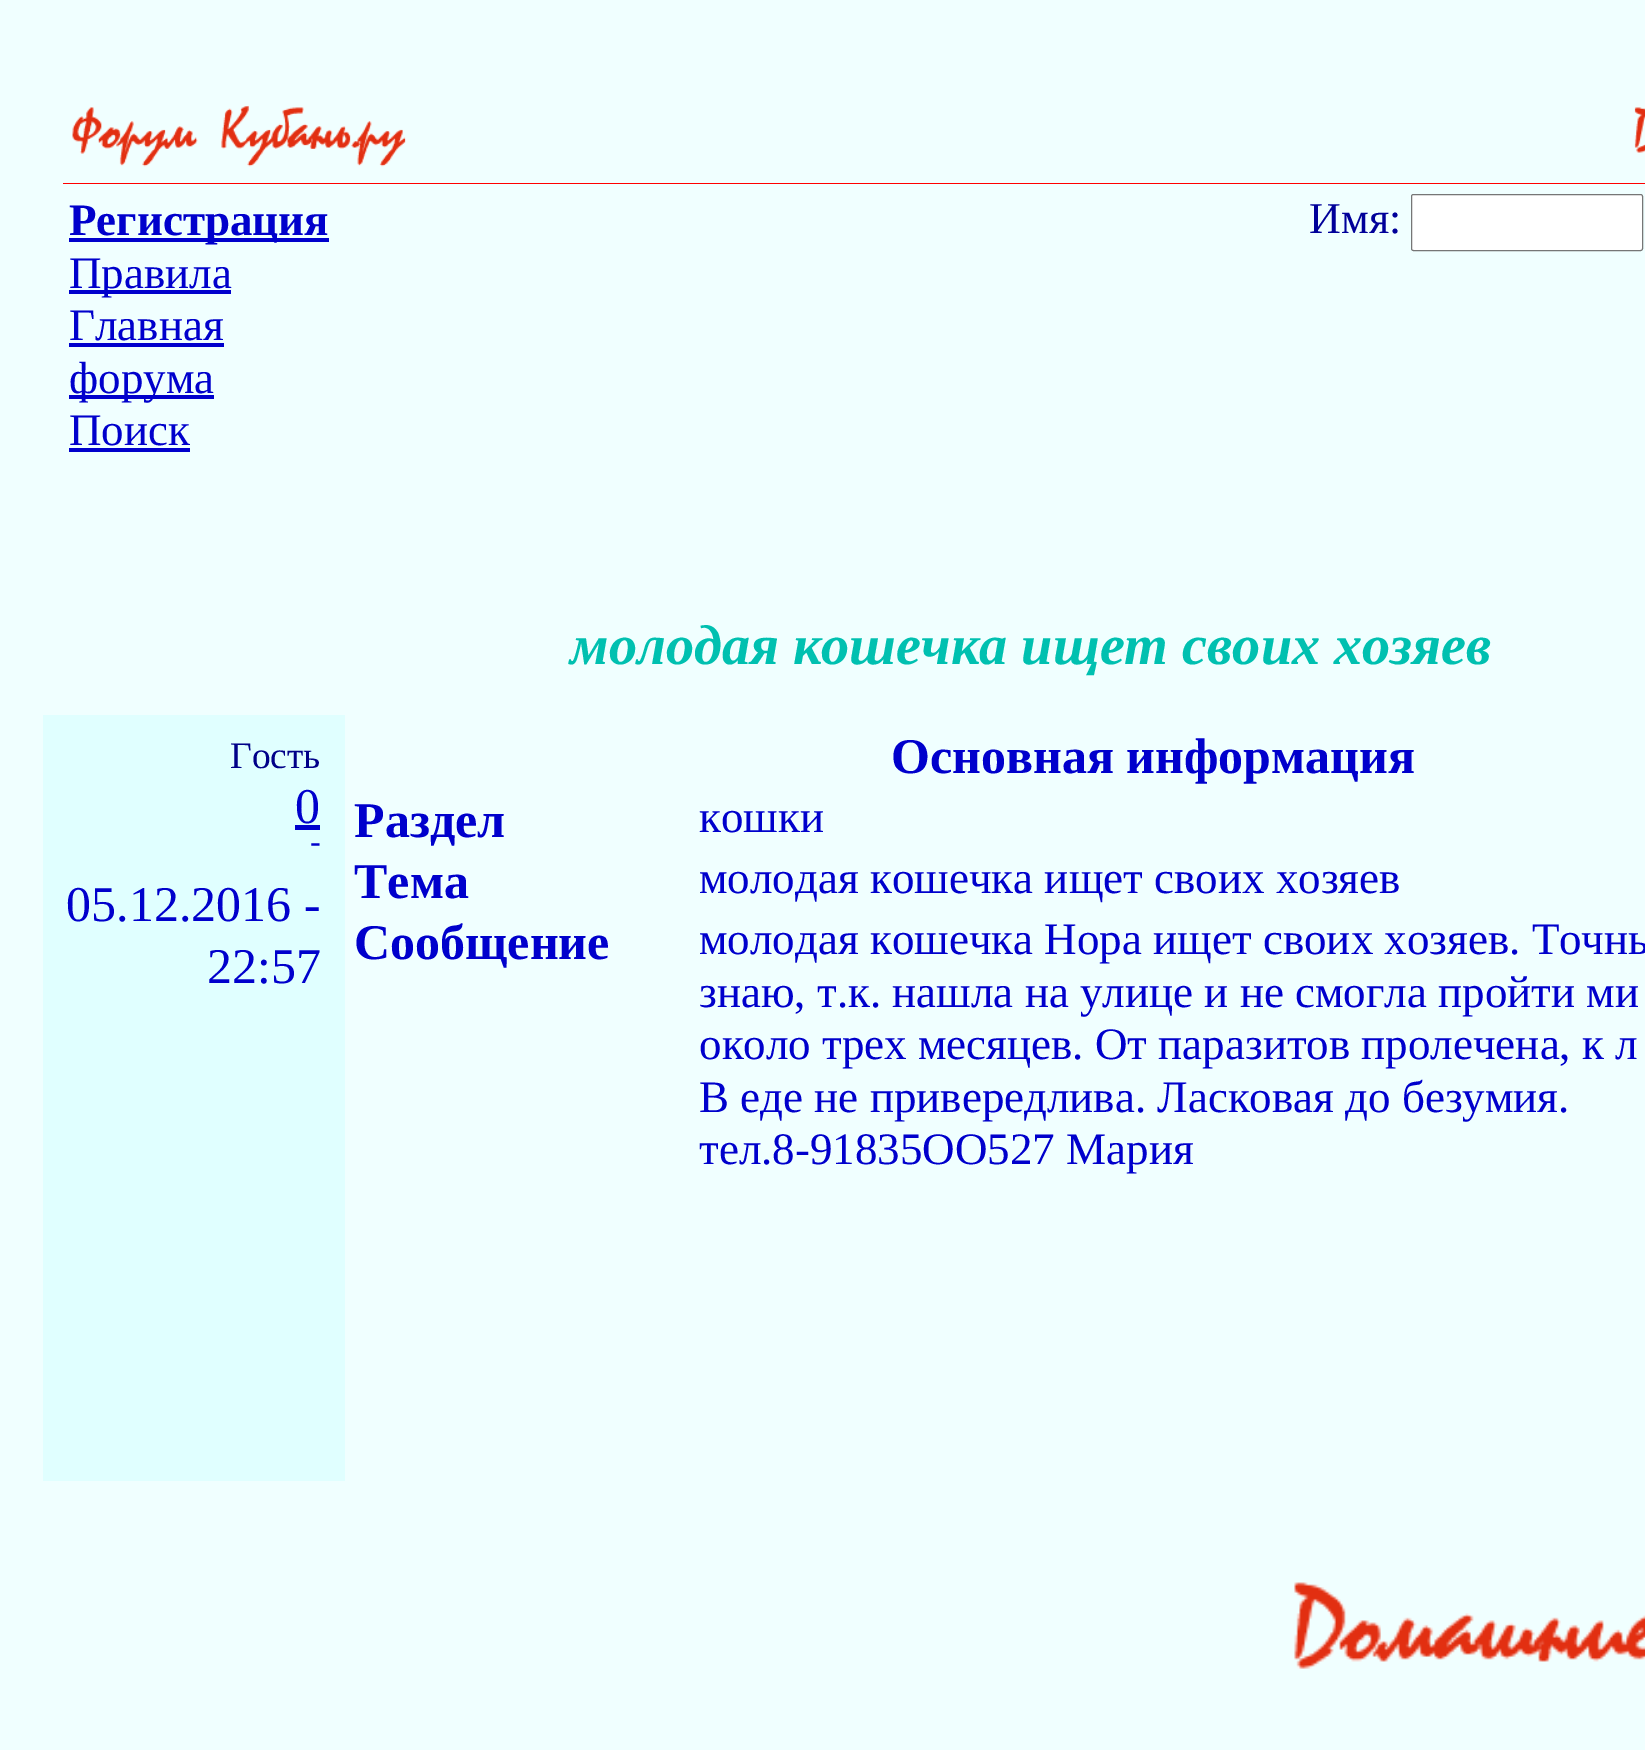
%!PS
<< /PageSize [1645 1750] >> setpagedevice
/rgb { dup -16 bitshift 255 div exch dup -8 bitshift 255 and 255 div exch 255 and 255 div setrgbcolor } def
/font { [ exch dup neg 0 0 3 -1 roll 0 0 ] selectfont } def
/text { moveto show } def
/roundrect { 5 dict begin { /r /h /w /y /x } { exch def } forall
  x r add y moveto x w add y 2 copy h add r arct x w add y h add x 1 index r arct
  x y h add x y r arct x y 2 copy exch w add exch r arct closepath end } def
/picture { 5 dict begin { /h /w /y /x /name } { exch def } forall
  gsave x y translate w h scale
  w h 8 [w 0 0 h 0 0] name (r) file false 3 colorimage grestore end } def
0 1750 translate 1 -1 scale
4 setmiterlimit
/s1 { /LiberationSerif-Bold 45 font 16#0000CC rgb } def
/s2 { /LiberationSerif-Regular 45 font 16#0000CC rgb } def
/s3 { /LiberationSerif-Regular 44 font 16#000099 rgb } def
/s4 { /LiberationSerif-BoldItalic 56.25 font 16#00C0B0 rgb } def
/s5 { /LiberationSerif-Regular 37.5 font 16#000088 rgb } def
/s6 { /LiberationSerif-Regular 50 font 16#0000CC rgb } def
/s7 { /LiberationSerif-Regular 32 font 16#0000CC rgb } def
/s8 { /LiberationSerif-Bold 50 font 16#0000CC rgb } def
16#F0FFFF rgb
0 0 1645 1750 rectfill
16#FF0000 rgb
63 183 1582 1 rectfill
(pic1.raw) 72 105 334 62 picture
(pic2.raw) 1634 107 11 46 picture
16#0000CC rgb
69 238 260 4 rectfill
s1
(Регистрация) 69 235 text
69 290 162 4 rectfill
s2
(Правила) 69 288 text
(Главная) 69 340 text
69 343 155 4 rectfill
69 395 145 4 rectfill
(форума) 69 393 text
(Поиск) 69 445 text
69 448 121 4 rectfill
s3
(Имя:) 1309 233 text
16#FFFFFF rgb
1411.5 194.5 231 56 2 roundrect gsave fill grestore
16#767676 rgb
stroke
s4
(молодая кошечка ищет своих хозяев) 570 664 text
16#E0FFFF rgb
43 715 302 766 rectfill
s5
(Гость) 230 768 text
s6
(0) 295 823 text
295 825 25 5 rectfill
s7
(-) 310 852 text
s6
(05.12.2016 -) 66 921 text
(22:57) 207 983 text
s8
(Основная информация) 891 773 text
(Раздел) 354 837 text
s2
(кошки) 699 832 text
s8
(Тема) 354 898 text
s2
(молодая кошечка ищет своих хозяев) 699 893 text
s8
(Сообщение) 354 959 text
s2
(молодая кошечка Нора ищет своих хозяев. Точны) 699 954 text
(знаю, т.к. нашла на улице и не смогла пройти ми) 699 1007 text
(около трех месяцев. От паразитов пролечена, к л) 699 1059 text
(В еде не привередлива. Ласковая до безумия.) 699 1112 text
(тел.8-91835ОО527 Мария) 699 1164 text
(pic3.raw) 1294 1582 351 87 picture
showpage
